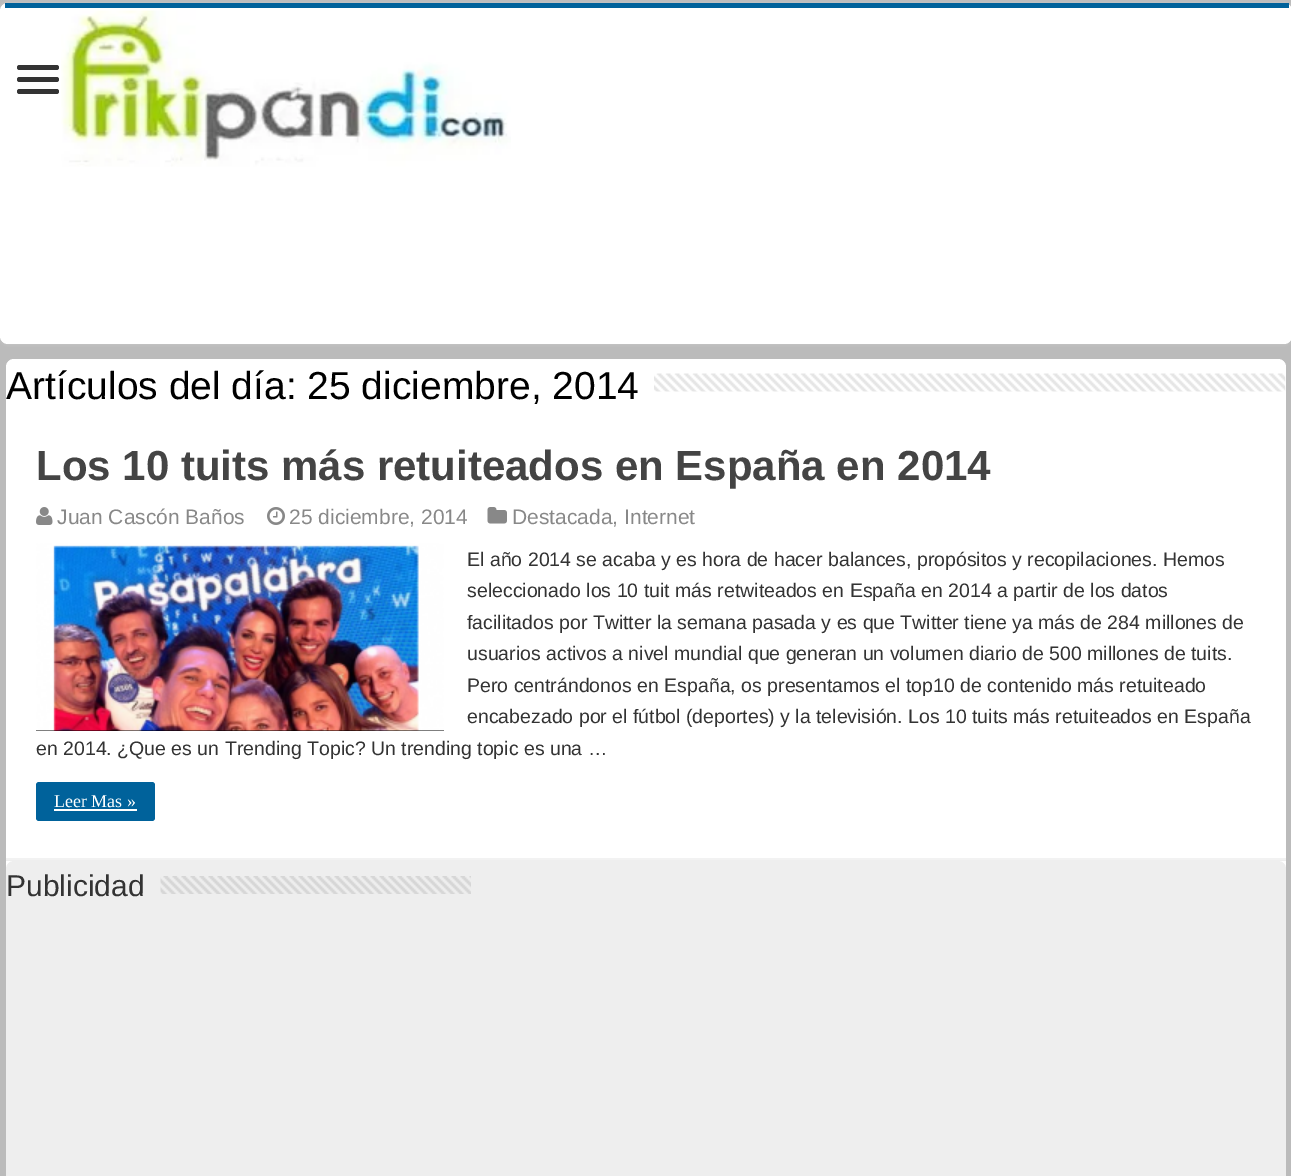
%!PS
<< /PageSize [1291 1176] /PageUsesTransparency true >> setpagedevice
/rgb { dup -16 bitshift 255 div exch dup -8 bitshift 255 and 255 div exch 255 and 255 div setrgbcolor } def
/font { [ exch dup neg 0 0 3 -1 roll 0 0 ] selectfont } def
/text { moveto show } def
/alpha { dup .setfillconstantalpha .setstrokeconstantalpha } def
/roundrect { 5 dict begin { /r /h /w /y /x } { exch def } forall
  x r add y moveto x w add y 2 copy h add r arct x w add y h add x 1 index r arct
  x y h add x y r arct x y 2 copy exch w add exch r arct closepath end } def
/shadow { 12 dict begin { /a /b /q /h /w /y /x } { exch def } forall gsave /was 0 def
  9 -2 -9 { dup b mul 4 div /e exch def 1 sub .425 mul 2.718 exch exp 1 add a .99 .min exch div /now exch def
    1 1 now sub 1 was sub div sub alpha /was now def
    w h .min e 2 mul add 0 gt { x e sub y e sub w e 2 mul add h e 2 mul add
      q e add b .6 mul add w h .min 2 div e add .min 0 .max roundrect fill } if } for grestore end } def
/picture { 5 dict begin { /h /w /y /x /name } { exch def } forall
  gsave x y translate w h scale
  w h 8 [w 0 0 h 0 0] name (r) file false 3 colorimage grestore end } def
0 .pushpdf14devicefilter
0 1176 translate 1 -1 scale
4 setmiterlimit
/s1 { /LiberationSans-Regular 39 font 16#000000 rgb } def
/s2 { /LiberationSans-Bold 42 font 16#444444 rgb } def
/s3 { /LiberationSans-Regular 21 font 16#888888 rgb } def
/s4 { /LiberationSans-Regular 19.5 font 16#333333 rgb } def
/s5 { /LiberationSerif-Regular 18 font 16#FFFFFF rgb } def
/s6 { /LiberationSans-Regular 30 font 16#333333 rgb } def
16#BBBBBB rgb
0 0 1291 1176 rectfill
16#CACACA rgb
0 3 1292 341 8 2 1 shadow
16#FFFFFF rgb
0 3 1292 341 8 roundrect fill
16#00629B rgb
5 3 1284 5 rectfill
16#333333 rgb
17 65 42 5 2.5 roundrect fill
17 77 42 5 2.5 roundrect fill
17 89 42 5 2.5 roundrect fill
(pic1.raw) 61 10 450 157 picture
16#FFFFFF rgb
6 359 1280 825 8 roundrect fill
s1
(Artículos del día: 25 diciembre, 2014) 6 399 text
(pic2.raw) 654 373 632 19 picture
16#EEEEEE rgb
6 860 1280 1 rectfill
16#F2F2F2 rgb
6 858 1280 2 rectfill
s2
(Los 10 tuits más retuiteados en España en 2014) 36 480 text
(pic3.raw) 36 507 17 18 picture
s3
(Juan Cascón Baños) 57 524 text
(pic4.raw) 267 507 18 18 picture
(25 diciembre, 2014) 289 524 text
(pic5.raw) 487 507 20 17 picture
(Destacada, Internet) 512 524 text
16#000000 rgb
36 730 408 1 rectfill
(pic6.raw) 36 543 408 188 picture
s4
(El año 2014 se acaba y es hora de hacer balances, propósitos y recopilaciones. Hemos) 467 566 text
(seleccionado los 10 tuit más retwiteados en España en 2014 a partir de los datos) 467 597 text
(facilitados por Twitter la semana pasada y es que Twitter tiene ya más de 284 millones de) 467 629 text
(usuarios activos a nivel mundial que generan un volumen diario de 500 millones de tuits.) 467 660 text
(Pero centrándonos en España, os presentamos el top10 de contenido más retuiteado) 467 692 text
(encabezado por el fútbol \(deportes\) y la televisión. Los 10 tuits más retuiteados en España) 467 723 text
(en 2014. ¿Que es un Trending Topic? Un trending topic es una …) 36 755 text
16#00629B rgb
36 782 119 39 3 roundrect fill
s5
(Leer Mas ») 54 807 text
54 809 83 2 rectfill
16#EEEEEE rgb
6 861 1280 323 8 roundrect fill
s6
(Publicidad) 6 896 text
(pic7.raw) 160 876 311 18 picture
.poppdf14devicefilter showpage
